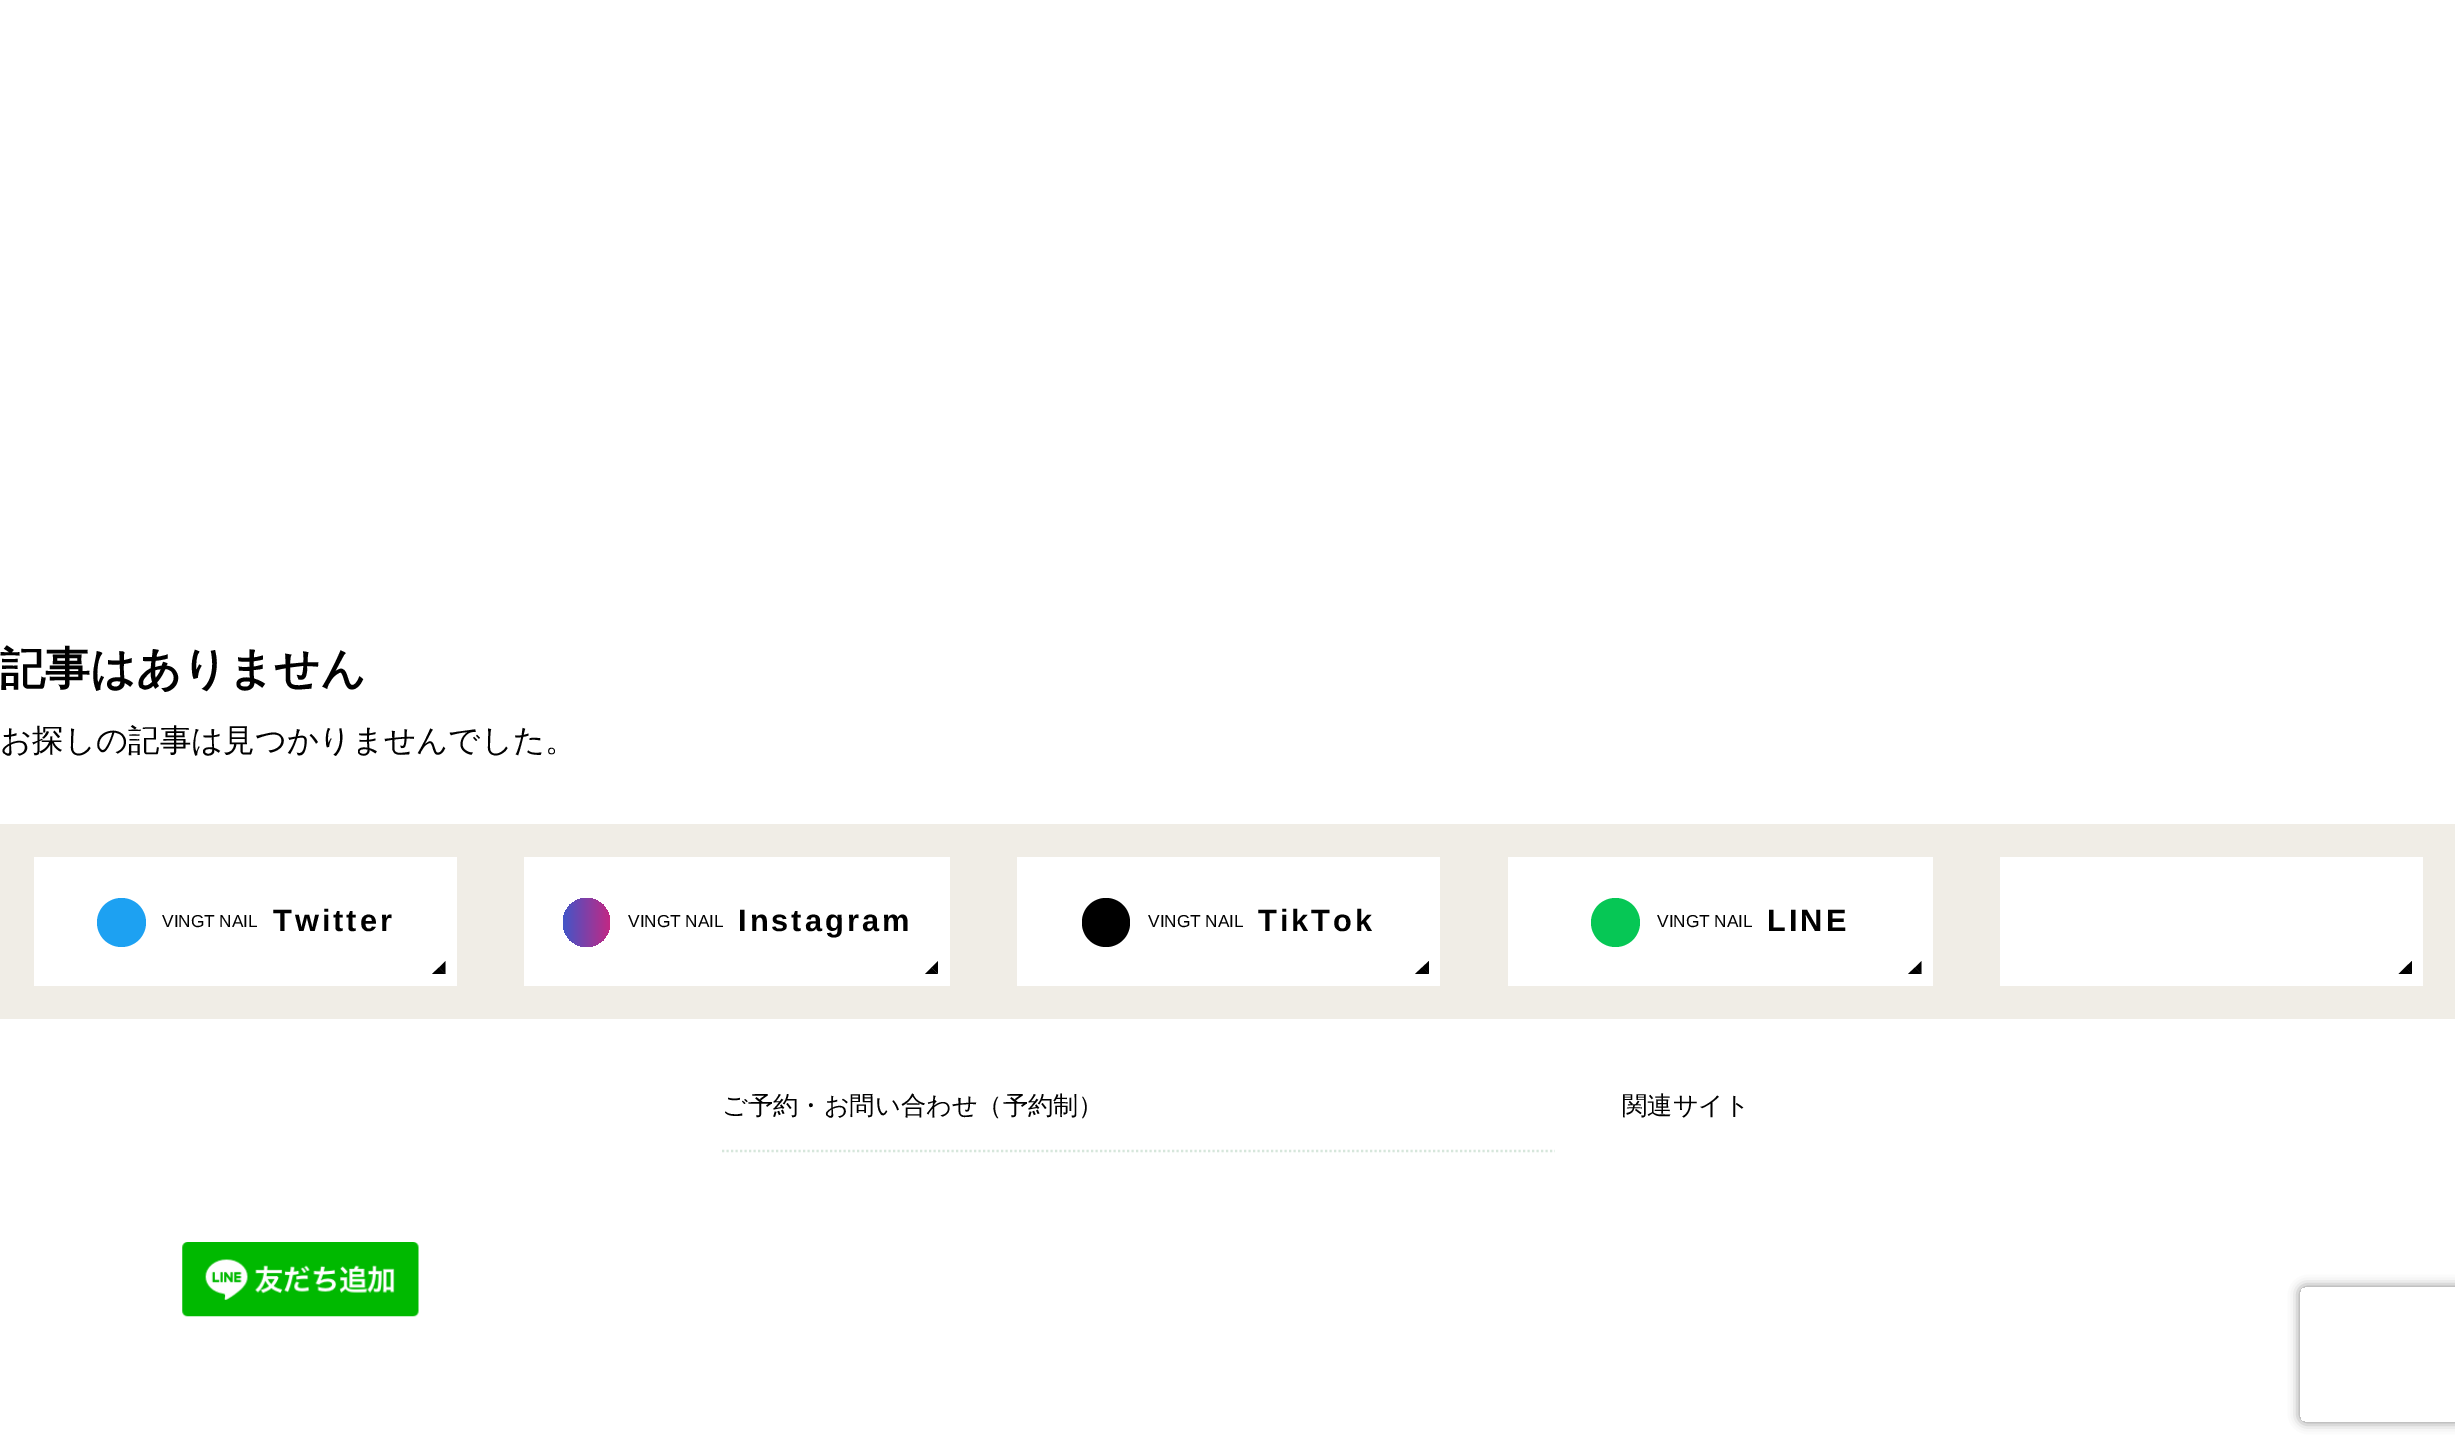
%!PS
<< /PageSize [2455 1453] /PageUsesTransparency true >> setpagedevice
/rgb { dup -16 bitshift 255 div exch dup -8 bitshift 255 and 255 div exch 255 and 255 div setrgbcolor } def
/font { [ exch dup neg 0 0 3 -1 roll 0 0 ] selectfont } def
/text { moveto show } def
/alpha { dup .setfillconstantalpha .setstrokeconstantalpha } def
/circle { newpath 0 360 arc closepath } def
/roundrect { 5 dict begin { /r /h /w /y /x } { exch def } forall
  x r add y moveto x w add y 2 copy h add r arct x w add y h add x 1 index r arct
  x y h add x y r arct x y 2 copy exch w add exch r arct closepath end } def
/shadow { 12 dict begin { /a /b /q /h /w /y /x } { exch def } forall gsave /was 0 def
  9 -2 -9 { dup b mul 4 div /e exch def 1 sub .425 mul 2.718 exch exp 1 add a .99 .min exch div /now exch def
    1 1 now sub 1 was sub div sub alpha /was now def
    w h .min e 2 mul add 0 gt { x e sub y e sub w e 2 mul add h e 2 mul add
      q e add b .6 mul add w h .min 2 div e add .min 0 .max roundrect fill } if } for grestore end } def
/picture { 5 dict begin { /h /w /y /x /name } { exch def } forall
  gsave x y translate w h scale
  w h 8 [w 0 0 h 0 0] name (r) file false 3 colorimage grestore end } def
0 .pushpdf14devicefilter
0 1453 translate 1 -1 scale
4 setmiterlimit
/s1 { /WenQuanYiZenHei-Bold 45 font 16#000000 rgb } def
/s2 { /WenQuanYiZenHei-Medium 31.5 font 16#000000 rgb } def
/s3 { /LiberationSans-Regular 17.25 font 16#000000 rgb } def
/s4 { /WenQuanYiZenHei-Medium 25.25 font 16#000000 rgb } def
16#FFFFFF rgb
0 0 2455 1453 rectfill
s1
(記事はありません) 0 684 text
s2
(お探しの記事は見つかりませんでした。) 0 751 text
16#F0EDE6 rgb
0 824 2455 195 rectfill
16#FFFFFF rgb
34 857 423 129 rectfill
16#1DA1F2 rgb
121.5 922.5 24.5 circle fill
s3
(VINGT NAIL) 162 927 text
/LiberationSans-Bold 30.75 font
273 931 moveto 3 0 (Twitter) ashow
445.5 961 moveto 445.5 974 lineto 439 967.5 lineto closepath fill
445.5 974 moveto 432 974 lineto 439 967.5 lineto closepath fill
16#FFFFFF rgb
524 857 426 129 rectfill
gsave 563 898 47 49 23.5 roundrect clip newpath
<< /ShadingType 2 /ColorSpace /DeviceRGB /Coords [563 923 610 923] /Extend [true true] /Function << /FunctionType 2 /Domain [0 1] /C0 [0.259 0.337 0.784] /C1 [0.761 0.157 0.518] /N 1 >> >> shfill grestore
s3
(VINGT NAIL) 628 927 text
/LiberationSans-Bold 30.75 font
738 931 moveto 3 0 (Instagram) ashow
938 961 moveto 938 974 lineto 931.5 967.5 lineto closepath fill
938 974 moveto 925 974 lineto 931.5 967.5 lineto closepath fill
16#FFFFFF rgb
1017 857 423 129 rectfill
16#000000 rgb
1082 898 48 49 24 roundrect fill
s3
(VINGT NAIL) 1148 927 text
/LiberationSans-Bold 30.75 font
1258 931 moveto 3 0 (TikTok) ashow
1429 961 moveto 1429 974 lineto 1422 967.5 lineto closepath fill
1429 974 moveto 1415 974 lineto 1422 967.5 lineto closepath fill
16#FFFFFF rgb
1508 857 425 129 rectfill
16#06C755 rgb
1615.5 922.5 24.5 circle fill
s3
(VINGT NAIL) 1657 927 text
/LiberationSans-Bold 30.75 font
1767 931 moveto 3 0 (LINE) ashow
1921.5 961 moveto 1921.5 974 lineto 1915 967.5 lineto closepath fill
1921.5 974 moveto 1908 974 lineto 1915 967.5 lineto closepath fill
16#FFFFFF rgb
2000 857 423 129 rectfill
16#000000 rgb
2412 961 moveto 2412 974 lineto 2405 967.5 lineto closepath fill
2412 974 moveto 2398.5 974 lineto 2405 967.5 lineto closepath fill
s4
(ご予約・お問い合わせ（予約制）) 722 1114 text
16#D6E6DB rgb
2.2 setlinewidth
[2.25 2.25] 0 setdash
722 1151 moveto 1555 1151 lineto stroke
s4
(関連サイト) 1622 1114 text
(pic1.raw) 182 1242 237 75 picture
gsave
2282 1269 moveto 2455 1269 lineto 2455 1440 lineto 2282 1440 lineto closepath 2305 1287 moveto 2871 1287 lineto 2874 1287 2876 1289 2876 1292 curveto 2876 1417 lineto 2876 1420 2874 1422 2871 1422 curveto 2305 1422 lineto 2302 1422 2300 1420 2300 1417 curveto 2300 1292 lineto 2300 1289 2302 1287 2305 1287 curveto closepath eoclip newpath
16#808080 rgb
2300 1287 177 135 5 5.5 1 shadow
grestore
.poppdf14devicefilter showpage
